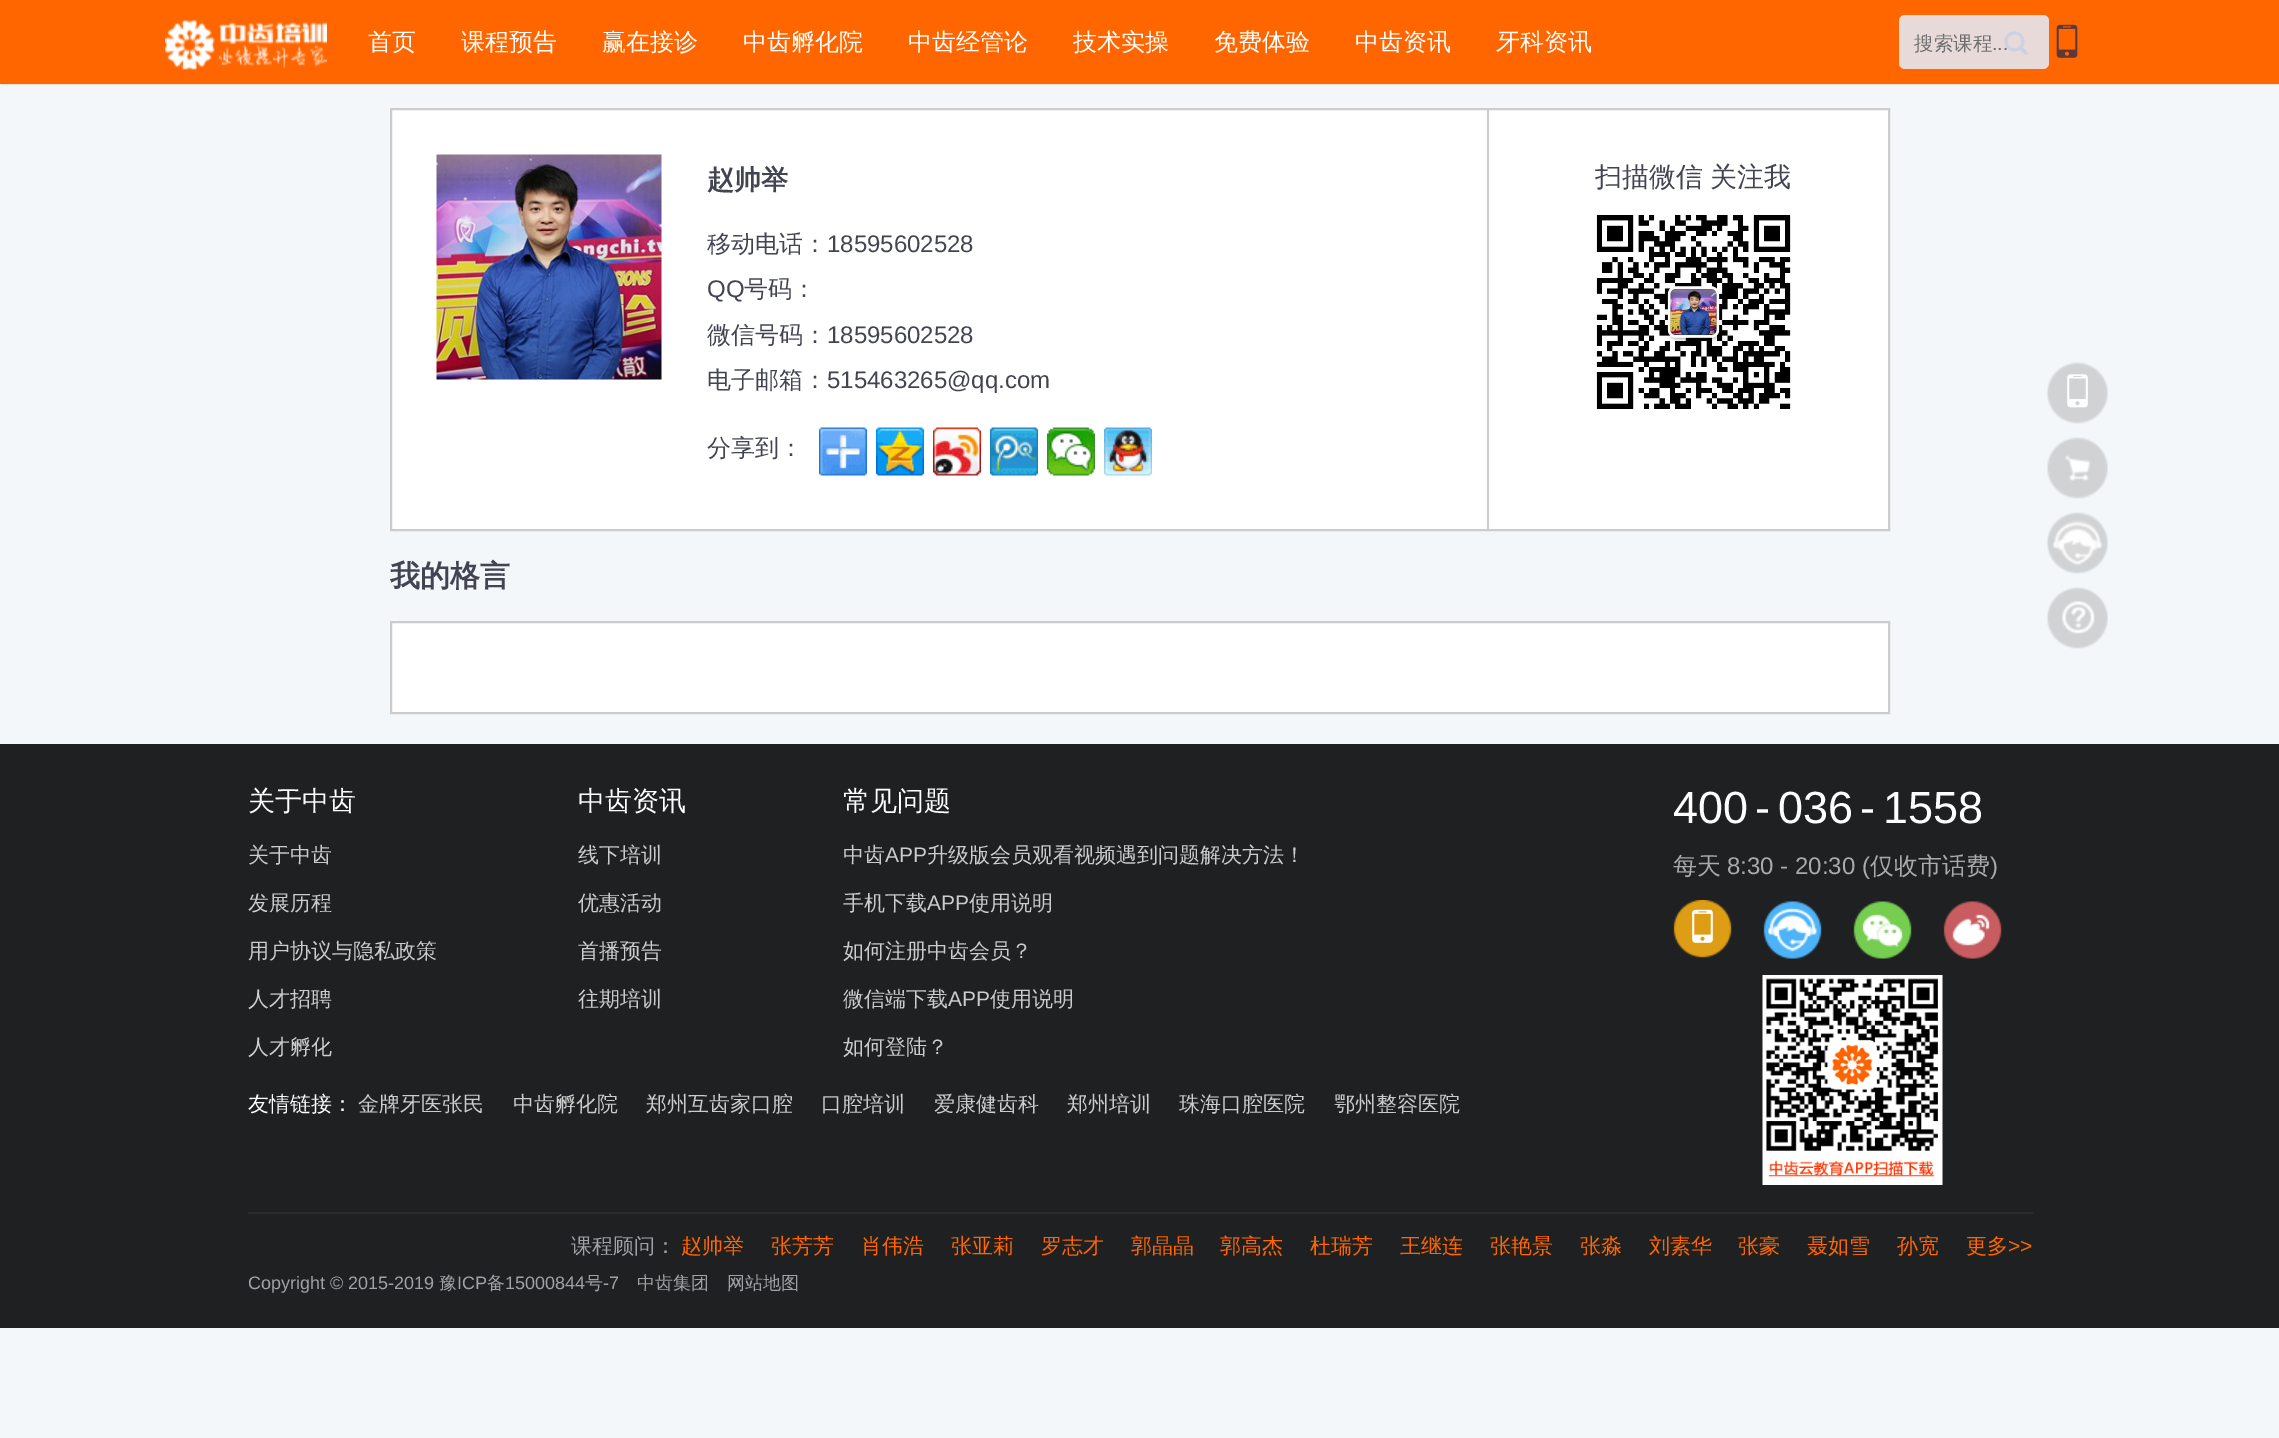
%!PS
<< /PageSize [2279 1438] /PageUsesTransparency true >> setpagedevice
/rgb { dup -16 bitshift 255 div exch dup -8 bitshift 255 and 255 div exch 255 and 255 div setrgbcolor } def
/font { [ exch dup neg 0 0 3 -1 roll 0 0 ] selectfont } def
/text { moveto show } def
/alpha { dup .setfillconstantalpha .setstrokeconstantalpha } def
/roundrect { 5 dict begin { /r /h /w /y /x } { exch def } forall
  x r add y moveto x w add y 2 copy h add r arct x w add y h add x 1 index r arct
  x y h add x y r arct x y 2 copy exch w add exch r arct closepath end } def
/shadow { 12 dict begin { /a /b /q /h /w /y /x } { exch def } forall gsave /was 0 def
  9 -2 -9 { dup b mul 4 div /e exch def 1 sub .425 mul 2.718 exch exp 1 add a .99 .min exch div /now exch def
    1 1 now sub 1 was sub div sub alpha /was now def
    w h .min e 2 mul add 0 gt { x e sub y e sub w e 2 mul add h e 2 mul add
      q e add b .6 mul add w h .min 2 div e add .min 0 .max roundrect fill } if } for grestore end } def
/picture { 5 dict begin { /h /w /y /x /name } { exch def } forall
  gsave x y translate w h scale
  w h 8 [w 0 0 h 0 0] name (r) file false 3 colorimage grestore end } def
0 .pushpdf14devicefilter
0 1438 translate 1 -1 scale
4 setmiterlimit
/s1 { /WenQuanYiZenHei-Medium 24 font 16#FFFFFF rgb } def
/s2 { /WenQuanYiZenHei-Medium 19.5 font 16#6E6E6E rgb } def
/s3 { /LiberationSans-Regular 19.5 font 16#6E6E6E rgb } def
/s4 { /WenQuanYiZenHei-Bold 27 font 16#424451 rgb } def
/s5 { /WenQuanYiZenHei-Medium 24 font 16#424451 rgb } def
/s6 { /LiberationSans-Regular 24 font 16#424451 rgb } def
/s7 { /WenQuanYiZenHei-Bold 30 font 16#424451 rgb } def
/s8 { /WenQuanYiZenHei-Medium 27 font 16#FFFFFF rgb } def
/s9 { /WenQuanYiZenHei-Medium 21 font 16#CCCCCC rgb } def
/s10 { /LiberationSans-Regular 21 font 16#CCCCCC rgb } def
/s11 { /WenQuanYiZenHei-Medium 21 font 16#FFFFFF rgb } def
/s12 { /LiberationSans-Regular 45 font 16#FFFFFF rgb } def
/s13 { /WenQuanYiZenHei-Medium 24 font 16#AAAAAA rgb } def
/s14 { /LiberationSans-Regular 24 font 16#AAAAAA rgb } def
/s15 { /WenQuanYiZenHei-Medium 21 font 16#9FA3A7 rgb } def
/s16 { /WenQuanYiZenHei-Medium 21 font 16#FF6600 rgb } def
/s17 { /LiberationSans-Regular 21 font 16#FF6600 rgb } def
/s18 { /LiberationSans-Regular 18 font 16#9FA3A7 rgb } def
/s19 { /WenQuanYiZenHei-Medium 18 font 16#9FA3A7 rgb } def
16#F4F7F9 rgb
0 0 2279 1438 rectfill
16#000000 rgb
2 0 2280 84 0 1 0.25 shadow
16#FF6600 rgb
0 0 2279 84 rectfill
(pic1.raw) 165 19 162 51 picture
s1
(首页) 368 50 text
(课程预告) 461 50 text
(赢在接诊) 602 50 text
(中齿孵化院) 743 50 text
(中齿经管论) 908 50 text
(技术实操) 1073 50 text
(免费体验) 1214 50 text
(中齿资讯) 1355 50 text
(牙科资讯) 1496 50 text
16#E9DADA rgb
1899 15 150 54 6 roundrect fill
s2
(搜索课程) 1914 50 text
s3
(...) 1992 50 text
(pic2.raw) 2004 31 24 24 picture
(pic3.raw) 2056 24 22 34 picture
16#FFFFFF rgb
391 109 moveto 1889 109 lineto 1889 530 lineto 391 530 lineto closepath gsave fill grestore
16#CCCCCC rgb
2 setlinewidth
stroke
1487 110 2 420 rectfill
(pic4.raw) 436 154 226 226 picture
s4
(赵帅举) 707 189 text
s5
(移动电话：) 707 252 text
s6
(18595602528) 827 252 text
(QQ) 707 297 text
s5
(号码：) 744 297 text
(微信号码：) 707 343 text
s6
(18595602528) 827 343 text
s5
(电子邮箱：) 707 388 text
s6
(515463265@qq.com) 827 388 text
s5
(分享到：) 707 456 text
(pic5.raw) 819 427 48 49 picture
(pic6.raw) 876 427 48 49 picture
(pic7.raw) 933 427 48 49 picture
(pic8.raw) 990 427 48 49 picture
(pic9.raw) 1047 427 48 49 picture
(pic10.raw) 1104 427 48 49 picture
/WenQuanYiZenHei-Medium 27 font
1595 186 moveto -1 0 32 (扫描微信 关注我) widthshow
(pic11.raw) 1594 214 197 195 picture
s7
(我的格言) 390 586 text
16#FFFFFF rgb
391 622 moveto 1889 622 lineto 1889 713 lineto 391 713 lineto closepath gsave fill grestore
16#CCCCCC rgb
stroke
(pic12.raw) 2047 362 61 62 picture
(pic13.raw) 2067 374 21 34 picture
(pic14.raw) 2047 437 61 62 picture
(pic15.raw) 2047 512 61 62 picture
(pic16.raw) 2047 587 61 62 picture
16#1F2021 rgb
0 744 2279 584 rectfill
s8
(关于中齿) 248 810 text
s9
(关于中齿) 248 862 text
(发展历程) 248 910 text
(用户协议与隐私政策) 248 958 text
(人才招聘) 248 1006 text
(人才孵化) 248 1054 text
s8
(中齿资讯) 578 810 text
s9
(线下培训) 578 862 text
(优惠活动) 578 910 text
(首播预告) 578 958 text
(往期培训) 578 1006 text
s8
(常见问题) 843 810 text
s9
(中齿) 843 862 text
s10
(APP) 885 862 text
s9
(升级版会员观看视频遇到问题解决方法！) 927 862 text
(手机下载) 843 910 text
s10
(APP) 927 910 text
s9
(使用说明) 969 910 text
(如何注册中齿会员？) 843 958 text
(微信端下载) 843 1006 text
s10
(APP) 948 1006 text
s9
(使用说明) 990 1006 text
(如何登陆？) 843 1054 text
s11
(友情链接：) 248 1111 text
s9
(金牌牙医张民) 358 1111 text
(中齿孵化院) 513 1111 text
(郑州互齿家口腔) 646 1111 text
(口腔培训) 821 1111 text
(爱康健齿科) 934 1111 text
(郑州培训) 1067 1111 text
(珠海口腔医院) 1179 1111 text
(鄂州整容医院) 1334 1111 text
s12
(400) 1673 823 text
(-) 1755 823 text
(036) 1778 823 text
(-) 1860 823 text
(1558) 1883 823 text
s13
(每天) 1673 874 text
s14
(8:30 - 20:30 \() 1727 874 text
s13
(仅收市话费) 1870 874 text
s14
(\)) 1990 874 text
(pic17.raw) 1673 900 59 58 picture
(pic18.raw) 1692 909 21 34 picture
(pic19.raw) 1763 901 59 58 picture
(pic20.raw) 1853 901 59 58 picture
(pic21.raw) 1943 901 59 58 picture
(pic22.raw) 1762 975 181 210 picture
16#2A2B2C rgb
248 1212 1785 2 rectfill
s15
(课程顾问：) 571 1253 text
s16
(赵帅举) 681 1253 text
(张芳芳) 771 1253 text
(肖伟浩) 861 1253 text
(张亚莉) 951 1253 text
(罗志才) 1041 1253 text
(郭晶晶) 1131 1253 text
(郭高杰) 1220 1253 text
(杜瑞芳) 1310 1253 text
(王继连) 1400 1253 text
(张艳景) 1490 1253 text
(张淼) 1580 1253 text
(刘素华) 1649 1253 text
(张豪) 1738 1253 text
(聂如雪) 1807 1253 text
(孙宽) 1897 1253 text
(更多) 1966 1253 text
s17
(>>) 2008 1253 text
s18
(Copyright © 2015-2019) 248 1289 text
s19
(豫) 439 1289 text
s18
(ICP) 457 1289 text
s19
(备) 487 1289 text
s18
(15000844) 505 1289 text
s19
(号) 585 1289 text
s18
(-7) 603 1289 text
s19
(中齿集团) 637 1289 text
(网站地图) 727 1289 text
.poppdf14devicefilter showpage
